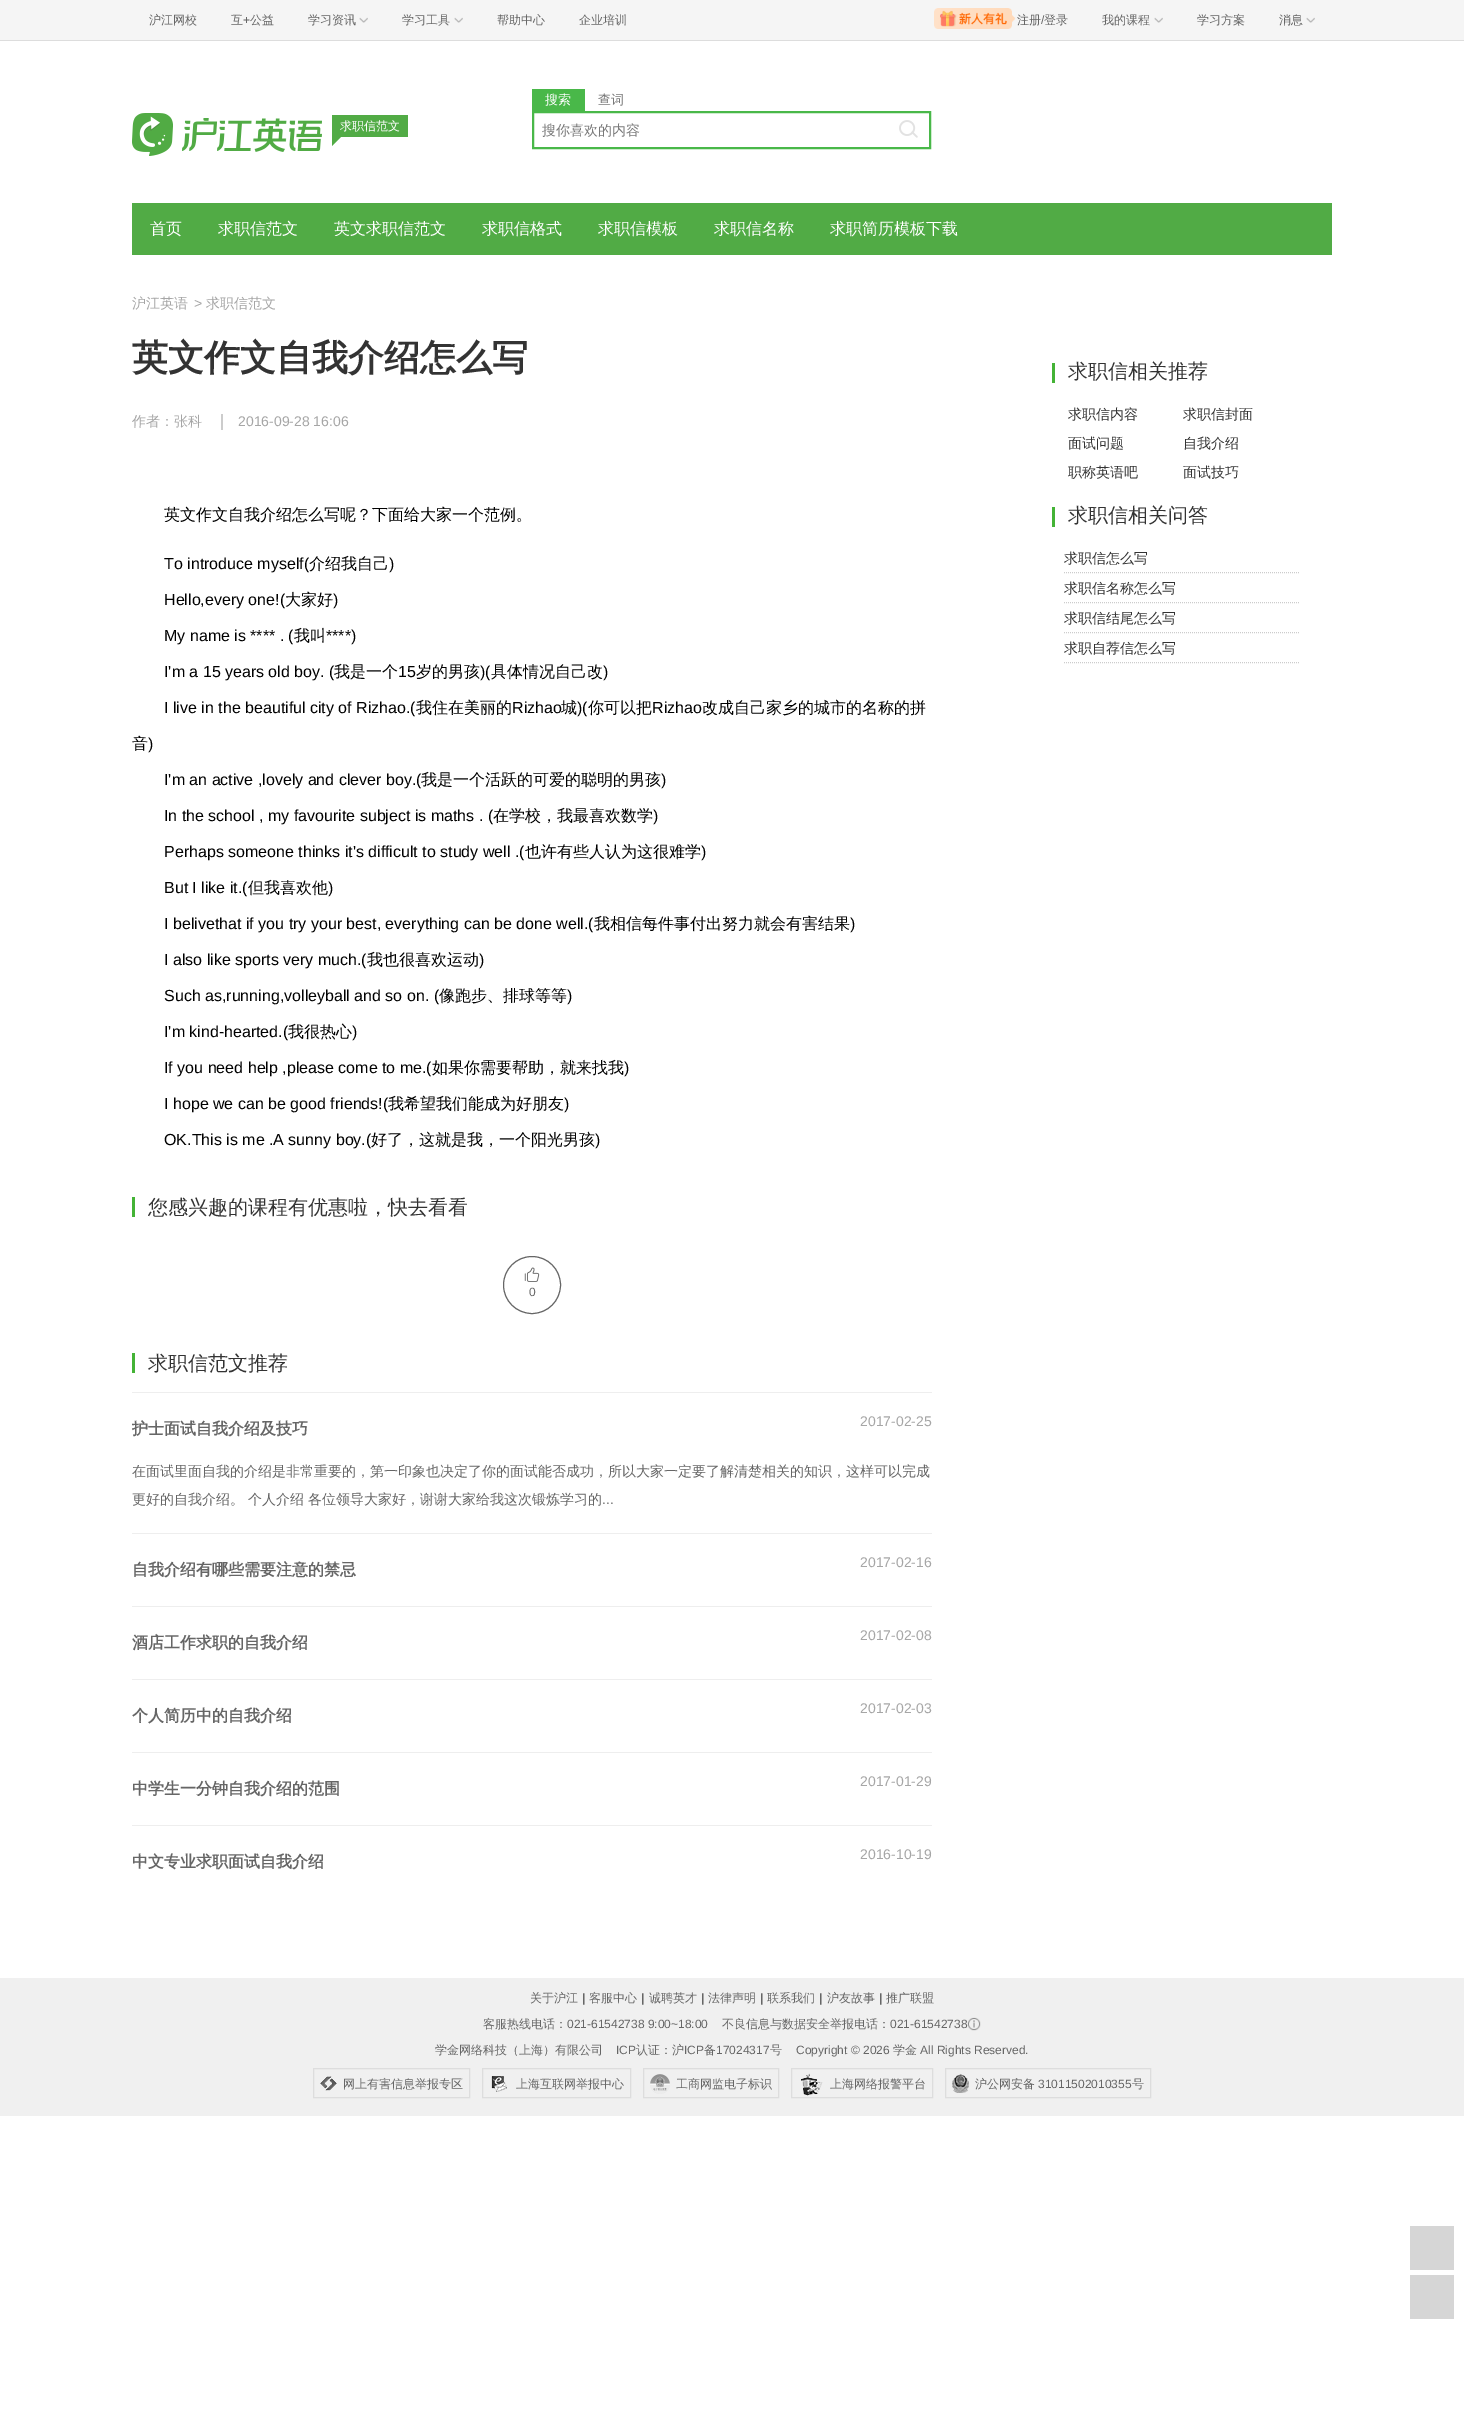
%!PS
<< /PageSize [1464 2432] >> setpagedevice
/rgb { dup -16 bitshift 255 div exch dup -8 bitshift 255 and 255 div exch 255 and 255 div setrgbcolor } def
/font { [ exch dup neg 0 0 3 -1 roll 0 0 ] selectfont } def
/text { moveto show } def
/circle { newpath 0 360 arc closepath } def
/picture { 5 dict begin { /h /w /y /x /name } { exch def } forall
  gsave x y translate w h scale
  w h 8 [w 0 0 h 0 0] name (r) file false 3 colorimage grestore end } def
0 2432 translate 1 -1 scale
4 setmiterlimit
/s1 { /WenQuanYiZenHei-Medium 12 font 16#666666 rgb } def
/s2 { /LiberationSans-Regular 12 font 16#666666 rgb } def
/s3 { /WenQuanYiZenHei-Medium 12 font 16#FFFFFF rgb } def
/s4 { /WenQuanYiZenHei-Medium 13 font 16#FFFFFF rgb } def
/s5 { /WenQuanYiZenHei-Medium 13 font 16#797979 rgb } def
/s6 { /WenQuanYiZenHei-Medium 14 font 16#797979 rgb } def
/s7 { /WenQuanYiZenHei-Medium 16 font 16#FFFFFF rgb } def
/s8 { /WenQuanYiZenHei-Medium 14 font 16#A6A6A6 rgb } def
/s9 { /LiberationSans-Regular 14 font 16#A6A6A6 rgb } def
/s10 { /WenQuanYiZenHei-Bold 36 font 16#333333 rgb } def
/s11 { /WenQuanYiZenHei-Medium 16 font 16#000000 rgb } def
/s12 { /LiberationSans-Regular 16 font 16#000000 rgb } def
/s13 { /WenQuanYiZenHei-Medium 20 font 16#333333 rgb } def
/s14 { /WenQuanYiZenHei-Bold 16 font 16#666666 rgb } def
/s15 { /WenQuanYiZenHei-Medium 14 font 16#666666 rgb } def
/s16 { /LiberationSans-Regular 14 font 16#666666 rgb } def
/s17 { /WenQuanYiZenHei-Medium 14 font 16#333333 rgb } def
/s18 { /LiberationSans-Bold 12 font 16#666666 rgb } def
16#FFFFFF rgb
0 0 1464 2432 rectfill
16#F5F5F5 rgb
0 0 1464 40 rectfill
16#DDDDDD rgb
0 40 1464 1 rectfill
s1
(沪江网校) 149 24 text
(互) 231 24 text
s2
(+) 243 24 text
s1
(公益) 250 24 text
(学习资讯) 308 24 text
(pic1.raw) 359 17 9 6 picture
(学习工具) 402 24 text
(pic1.raw) 454 17 9 6 picture
(帮助中心) 497 24 text
(企业培训) 579 24 text
(pic2.raw) 934 8 82 21 picture
(注册) 1017 24 text
s2
(/) 1041 24 text
s1
(登录) 1044 24 text
(我的课程) 1102 24 text
(pic1.raw) 1154 17 9 6 picture
(学习方案) 1197 24 text
(消息) 1279 24 text
(pic1.raw) 1306 17 9 6 picture
(pic3.raw) 132 113 190 43 picture
16#51AB45 rgb
332 115 76 22 rectfill
s3
(求职信范文) 340 130 text
16#51AB45 rgb
332 136 moveto 342 136 lineto 332 146 lineto closepath fill
16#49B849 rgb
532 89 53 22 rectfill
s4
(搜索) 545 104 text
s5
(查词) 598 104 text
16#49B849 rgb
2 setlinewidth
533 112 397 36 rectstroke
s6
(搜你喜欢的内容) 542 135 text
(pic4.raw) 899 120 19 18 picture
16#51AB45 rgb
132 203 1200 52 rectfill
s7
(首页) 150 234 text
(求职信范文) 218 234 text
(英文求职信范文) 334 234 text
(求职信格式) 482 234 text
(求职信模板) 598 234 text
(求职信名称) 714 234 text
(求职简历模板下载) 830 234 text
s8
(沪江英语) 132 308 text
s9
(>) 194 308 text
s8
(求职信范文) 206 308 text
s10
(英文作文自我介绍怎么写) 132 370 text
s8
(作者：张科) 132 426 text
16#CCCCCC rgb
221 414 2 16 rectfill
s9
(2016-09-28 16:06) 238 426 text
s11
(英文作文自我介绍怎么写呢？下面给大家一个范例。) 164 520 text
s12
(To introduce myself\() 164 569 text
s11
(介绍我自己) 309 569 text
s12
(\)) 389 569 text
(Hello,every one!\() 164 605 text
s11
(大家好) 285 605 text
s12
(\)) 333 605 text
(My name is **** . \() 164 641 text
s11
(我叫) 294 641 text
s12
(****\)) 326 641 text
(I'm a 15 years old boy. \() 164 677 text
s11
(我是一个) 334 677 text
s12
(15) 398 677 text
s11
(岁的男孩) 416 677 text
s12
(\)\() 480 677 text
s11
(具体情况自己改) 491 677 text
s12
(\)) 603 677 text
(I live in the beautiful city of Rizhao.\() 164 713 text
s11
(我住在美丽的) 416 713 text
s12
(Rizhao) 512 713 text
s11
(城) 561 713 text
s12
(\)\() 577 713 text
s11
(你可以把) 588 713 text
s12
(Rizhao) 652 713 text
s11
(改成自己家乡的城市的名称的拼) 702 713 text
(音) 132 749 text
s12
(\)) 148 749 text
(I'm an active ,lovely and clever boy.\() 164 785 text
s11
(我是一个活跃的可爱的聪明的男孩) 421 785 text
s12
(\)) 661 785 text
(In the school , my favourite subject is maths . \() 164 821 text
s11
(在学校，我最喜欢数学) 493 821 text
s12
(\)) 653 821 text
(Perhaps someone thinks it's difficult to study well .\() 164 857 text
s11
(也许有些人认为这很难学) 525 857 text
s12
(\)) 701 857 text
(But I like it.\() 164 893 text
s11
(但我喜欢他) 248 893 text
s12
(\)) 328 893 text
(I belivethat if you try your best, everything can be done well.\() 164 929 text
s11
(我相信每件事付出努力就会有害结果) 594 929 text
s12
(\)) 850 929 text
(I also like sports very much.\() 164 965 text
s11
(我也很喜欢运动) 367 965 text
s12
(\)) 479 965 text
(Such as,running,volleyball and so on. \() 164 1001 text
s11
(像跑步、排球等等) 439 1001 text
s12
(\)) 567 1001 text
(I'm kind-hearted.\() 164 1037 text
s11
(我很热心) 288 1037 text
s12
(\)) 352 1037 text
(If you need help ,please come to me.\() 164 1073 text
s11
(如果你需要帮助，就来找我) 432 1073 text
s12
(\)) 624 1073 text
(I hope we can be good friends!\() 164 1109 text
s11
(我希望我们能成为好朋友) 388 1109 text
s12
(\)) 564 1109 text
(OK.This is me .A sunny boy.\() 164 1145 text
s11
(好了，这就是我，一个阳光男孩) 371 1145 text
s12
(\)) 595 1145 text
16#44B336 rgb
132 1197 3 20 rectfill
s13
(您感兴趣的课程有优惠啦，快去看看) 148 1214 text
16#666666 rgb
1 setlinewidth
532 1285 28.5 circle stroke
(pic5.raw) 524 1267 16 15 picture
s2
(0) 529 1296 text
16#44B336 rgb
132 1353 3 20 rectfill
s13
(求职信范文推荐) 148 1370 text
16#EEEEEE rgb
132 1392 800 1 rectfill
s14
(护士面试自我介绍及技巧) 132 1434 text
s9
(2017-02-25) 860 1426 text
s15
(在面试里面自我的介绍是非常重要的，第一印象也决定了你的面试能否成功，所以大家一定要了解清楚相关的知识，这样可以完成) 132 1476 text
(更好的自我介绍。 个人介绍 各位领导大家好，谢谢大家给我这次锻炼学习的) 132 1504 text
s16
(...) 602 1504 text
16#EEEEEE rgb
132 1533 800 1 rectfill
s14
(自我介绍有哪些需要注意的禁忌) 132 1575 text
s9
(2017-02-16) 860 1567 text
16#EEEEEE rgb
132 1606 800 1 rectfill
s14
(酒店工作求职的自我介绍) 132 1648 text
s9
(2017-02-08) 860 1640 text
16#EEEEEE rgb
132 1679 800 1 rectfill
s14
(个人简历中的自我介绍) 132 1721 text
s9
(2017-02-03) 860 1713 text
16#EEEEEE rgb
132 1752 800 1 rectfill
s14
(中学生一分钟自我介绍的范围) 132 1794 text
s9
(2017-01-29) 860 1786 text
16#EEEEEE rgb
132 1825 800 1 rectfill
s14
(中文专业求职面试自我介绍) 132 1867 text
s9
(2016-10-19) 860 1859 text
16#44B336 rgb
1052 363 3 20 rectfill
s13
(求职信相关推荐) 1068 378 text
s17
(求职信内容) 1068 419 text
(求职信封面) 1183 419 text
(面试问题) 1068 448 text
(自我介绍) 1183 448 text
(职称英语吧) 1068 477 text
(面试技巧) 1183 477 text
16#44B336 rgb
1052 507 3 20 rectfill
s13
(求职信相关问答) 1068 522 text
16#CCCCCC rgb
[1 1] 0 setdash
1064 572.5 moveto 1300 572.5 lineto stroke
s17
(求职信怎么写) 1064 563 text
16#CCCCCC rgb
1064 602.5 moveto 1300 602.5 lineto stroke
s17
(求职信名称怎么写) 1064 593 text
16#CCCCCC rgb
1064 632.5 moveto 1300 632.5 lineto stroke
s17
(求职信结尾怎么写) 1064 623 text
16#CCCCCC rgb
1064 662.5 moveto 1300 662.5 lineto stroke
s17
(求职自荐信怎么写) 1064 653 text
16#F0F0F0 rgb
0 1978 1464 138 rectfill
s1
(关于沪江) 530 2002 text
s18
(|) 582 2002 text
s1
(客服中心) 589 2002 text
s18
(|) 641 2002 text
s1
(诚聘英才) 649 2002 text
s18
(|) 701 2002 text
s1
(法律声明) 708 2002 text
s18
(|) 760 2002 text
s1
(联系我们) 767 2002 text
s18
(|) 819 2002 text
s1
(沪友故事) 827 2002 text
s18
(|) 879 2002 text
s1
(推广联盟) 886 2002 text
(客服热线电话：) 483 2028 text
s2
(021-61542738 9:00~18:00) 567 2028 text
(pic6.raw) 967 2017 14 14 picture
s1
(不良信息与数据安全举报电话：) 722 2028 text
s2
(021-61542738) 890 2028 text
s1
(学金网络科技（上海）有限公司) 435 2054 text
s2
(ICP) 616 2054 text
s1
(认证：沪) 636 2054 text
s2
(ICP) 684 2054 text
s1
(备) 704 2054 text
s2
(17024317) 716 2054 text
s1
(号) 770 2054 text
s2
(Copyright © 2026) 796 2054 text
s1
(学金) 893 2054 text
s2
(All Rights Reserved.) 920 2054 text
16#DDDDDD rgb
[] 0 setdash
313.5 2068.5 156 29 rectstroke
(pic7.raw) 320 2076 17 15 picture
s1
(网上有害信息举报专区) 343 2088 text
16#DDDDDD rgb
482.5 2068.5 148 29 rectstroke
(pic8.raw) 491 2076 16 16 picture
s1
(上海互联网举报中心) 516 2088 text
16#DDDDDD rgb
643.5 2068.5 135 29 rectstroke
(pic9.raw) 650 2074 20 20 picture
s1
(工商网监电子标识) 676 2088 text
16#DDDDDD rgb
791.5 2068.5 141 29 rectstroke
(pic10.raw) 801 2073 22 23 picture
s1
(上海网络报警平台) 830 2088 text
16#DDDDDD rgb
945.5 2068.5 205 29 rectstroke
(pic11.raw) 952 2074 17 19 picture
s1
(沪公网安备) 975 2088 text
s2
(31011502010355) 1038 2088 text
s1
(号) 1132 2088 text
16#D6D6D6 rgb
1410 2226 44 44 rectfill
1410 2275 44 44 rectfill
showpage
